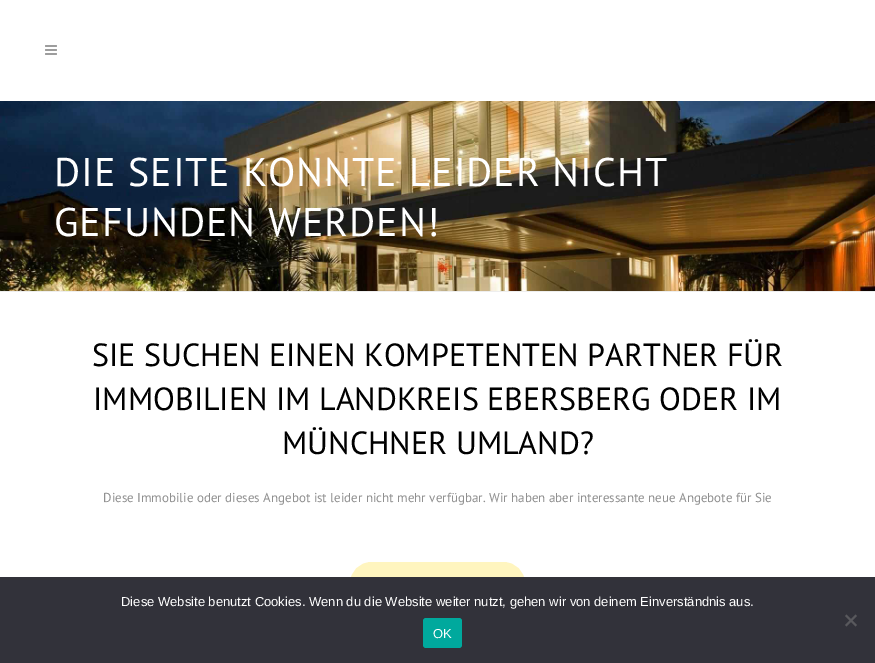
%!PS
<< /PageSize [875 663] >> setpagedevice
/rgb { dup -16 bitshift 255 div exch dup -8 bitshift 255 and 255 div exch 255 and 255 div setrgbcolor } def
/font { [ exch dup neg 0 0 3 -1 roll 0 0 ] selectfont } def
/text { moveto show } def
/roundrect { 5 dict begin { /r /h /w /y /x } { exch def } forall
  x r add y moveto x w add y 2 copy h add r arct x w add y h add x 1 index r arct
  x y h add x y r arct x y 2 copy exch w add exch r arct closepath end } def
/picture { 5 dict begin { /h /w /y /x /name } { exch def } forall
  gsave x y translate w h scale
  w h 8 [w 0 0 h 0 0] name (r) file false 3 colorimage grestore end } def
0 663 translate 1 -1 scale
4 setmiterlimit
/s1 { /PTSans-Regular 32 font 16#000000 rgb } def
/s2 { /PTSans-Regular 13 font 16#909090 rgb } def
/s3 { /LiberationSans-Regular 13 font 16#FFFFFF rgb } def
16#FFFFFF rgb
0 0 875 663 rectfill
(pic1.raw) 45 45 12 10 picture
16#EEEEEE rgb
0 291 875 1 rectfill
(pic2.raw) 0 101 875 190 picture
/PTSans-Regular 40 font
16#FFFFFF rgb
54 186 moveto 1 0 (DIE SEITE KONNTE LEIDER NICHT) ashow
54 236 moveto 1 0 (GEFUNDEN WERDEN!) ashow
s1
(SIE SUCHEN EINEN KOMPETENTEN PARTNER FÜR) 92 366 text
(IMMOBILIEN IM LANDKREIS EBERSBERG ODER IM) 93 410 text
(MÜNCHNER UMLAND?) 282 454 text
s2
(Diese Immobilie oder dieses Angebot ist leider nicht mehr verfügbar. Wir haben aber interessante neue Angebote für Sie) 103 502 text
16#FFF5BF rgb
351 563 173 41 20.5 roundrect gsave fill grestore
2 setlinewidth
stroke
16#32323A rgb
0 577 875 86 rectfill
s3
(Diese Website benutzt Cookies. Wenn du die Website weiter nutzt, gehen wir von deinem Einverständnis aus.) 121 606 text
16#59595D rgb
855.5 614.5 moveto 857 616 lineto 846.5 626.5 lineto 845 625 lineto closepath fill
845 616 moveto 846.5 614.5 lineto 857 625 lineto 855.5 626.5 lineto closepath fill
16#00A99D rgb
423 618 39 30 3 roundrect fill
s3
(OK) 433 638 text
showpage
